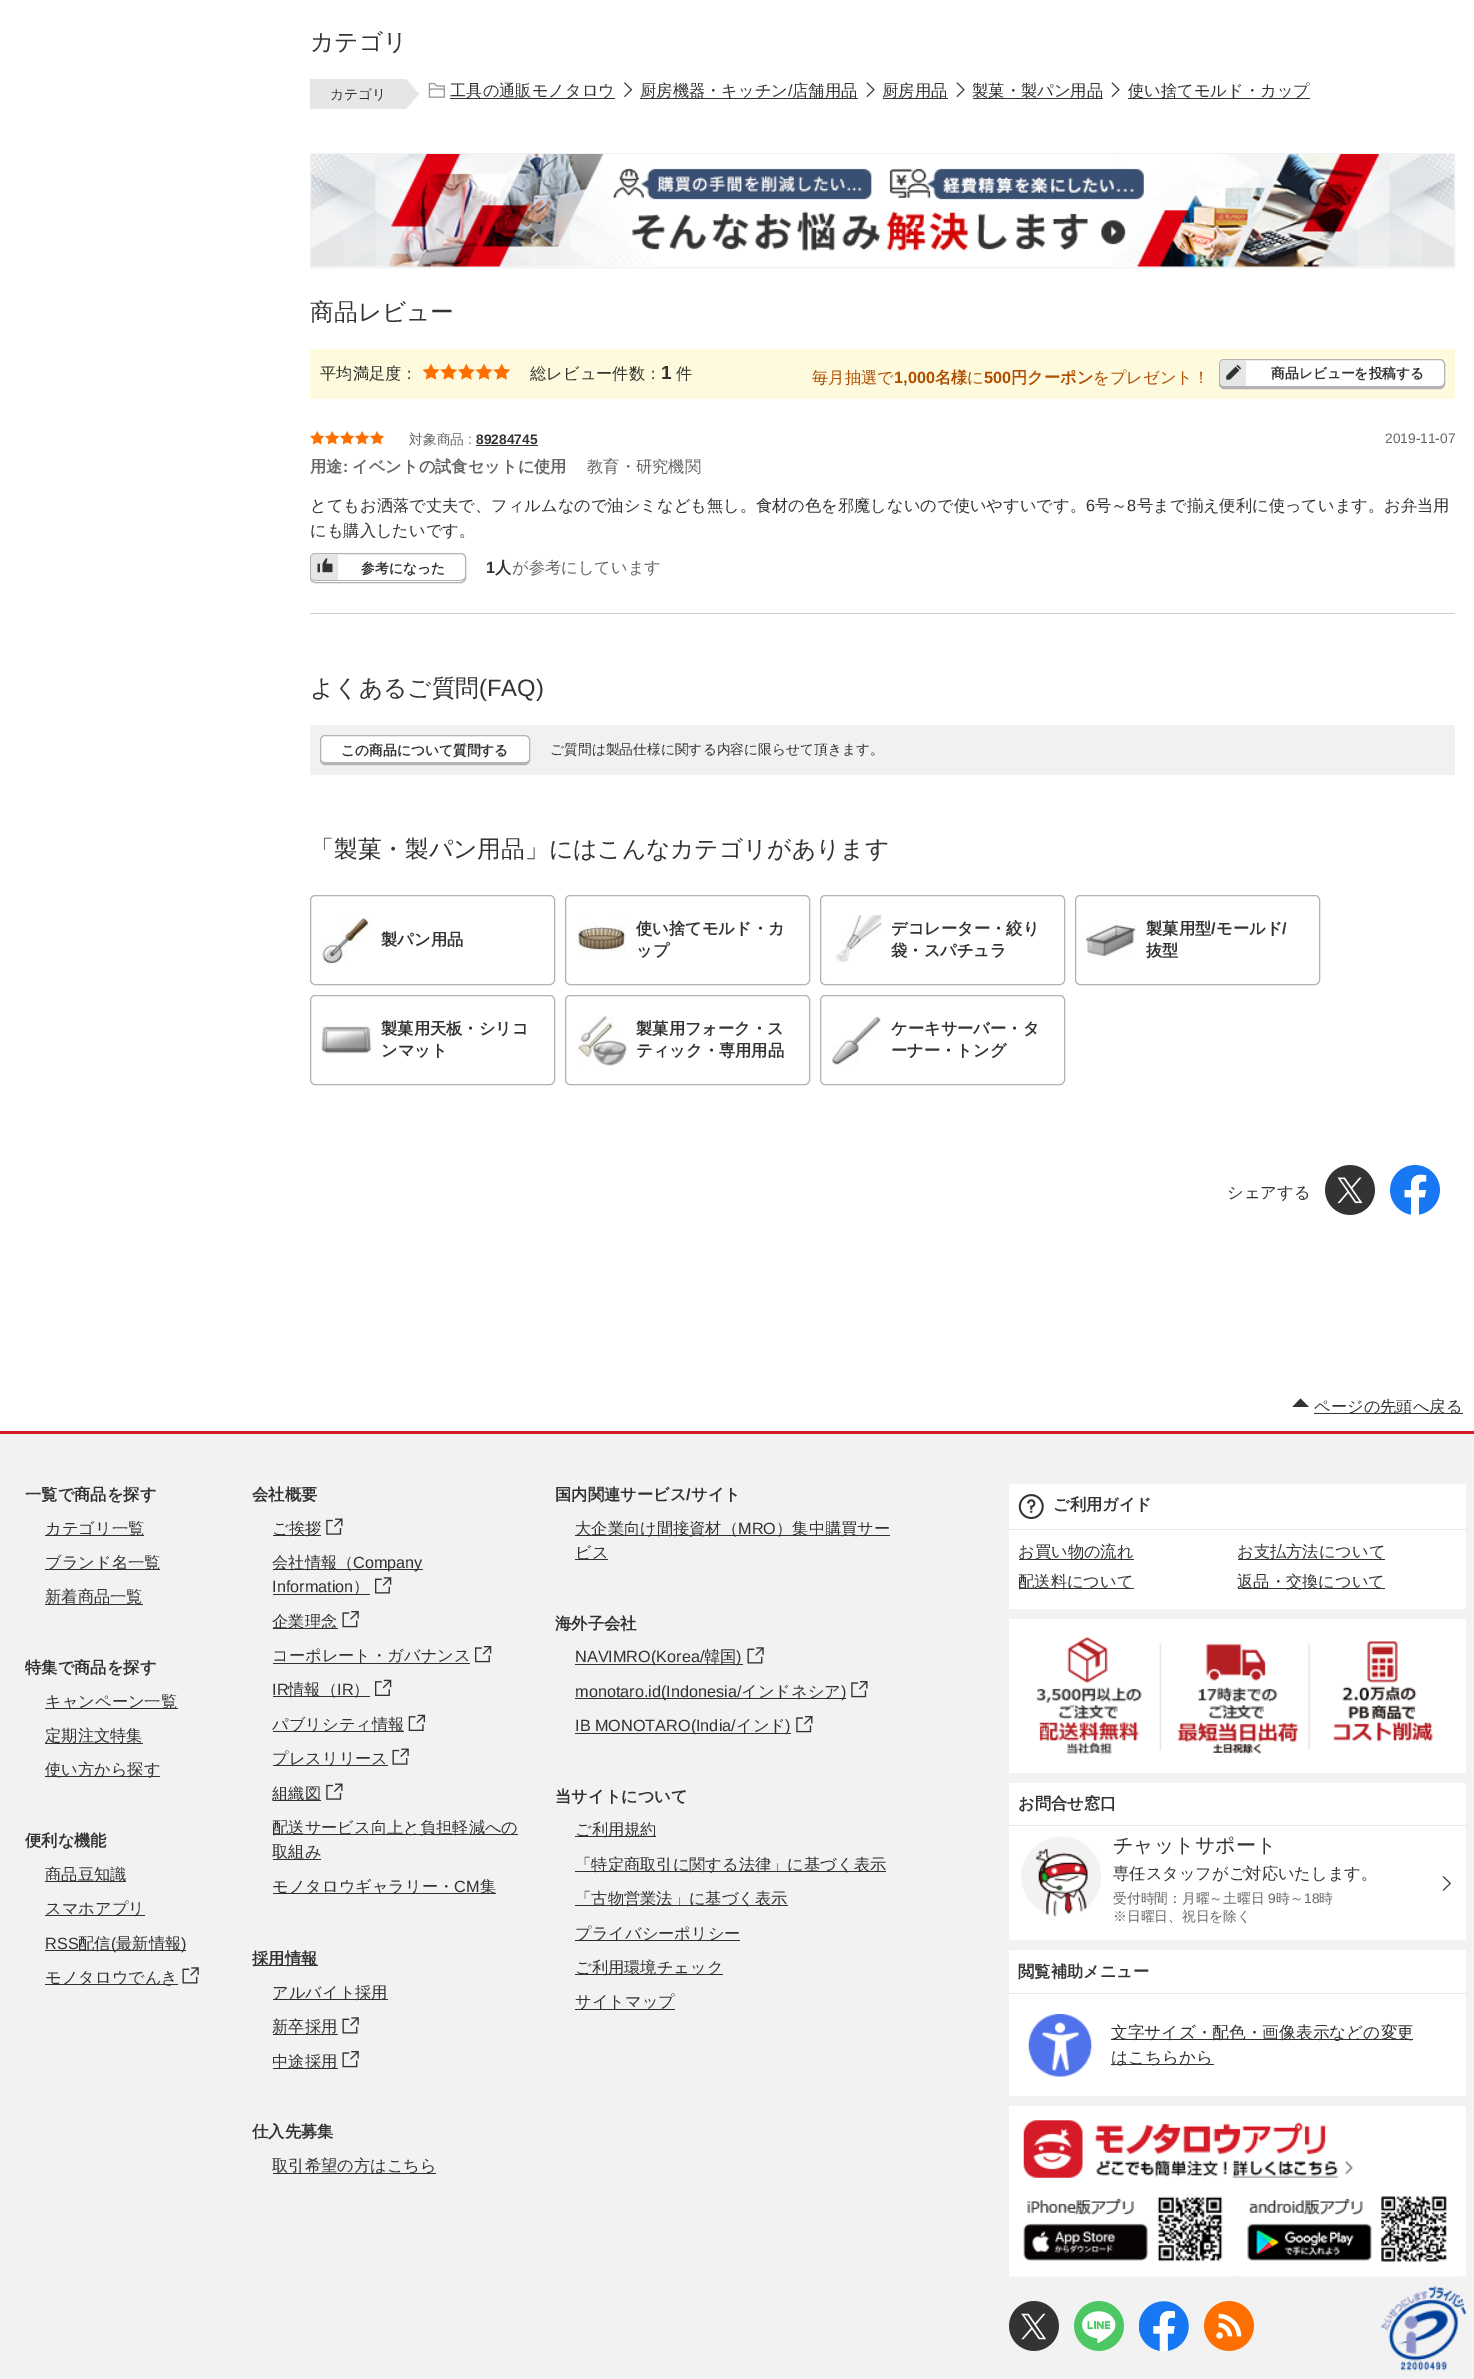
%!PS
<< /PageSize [1474 2379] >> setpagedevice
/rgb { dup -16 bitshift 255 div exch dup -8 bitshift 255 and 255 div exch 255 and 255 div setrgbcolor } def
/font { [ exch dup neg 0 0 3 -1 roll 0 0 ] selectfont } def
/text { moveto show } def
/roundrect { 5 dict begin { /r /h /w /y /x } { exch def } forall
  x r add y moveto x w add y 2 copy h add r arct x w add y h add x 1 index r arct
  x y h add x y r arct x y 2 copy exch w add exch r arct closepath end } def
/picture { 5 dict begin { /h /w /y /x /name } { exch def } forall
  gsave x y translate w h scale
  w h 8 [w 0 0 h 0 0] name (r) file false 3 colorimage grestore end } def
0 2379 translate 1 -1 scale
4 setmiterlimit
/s1 { /WenQuanYiZenHei-Medium 23.75 font 16#333333 rgb } def
/s2 { /WenQuanYiZenHei-Medium 13.75 font 16#333333 rgb } def
/s3 { /WenQuanYiZenHei-Medium 16.25 font 16#333333 rgb } def
/s4 { /LiberationSans-Regular 16.25 font 16#333333 rgb } def
/s5 { /WenQuanYiZenHei-Medium 16.25 font 16#33322C rgb } def
/s6 { /LiberationSans-Bold 19 font 16#33322C rgb } def
/s7 { /WenQuanYiZenHei-Medium 16.25 font 16#B14D00 rgb } def
/s8 { /LiberationSans-Bold 16.25 font 16#B14D00 rgb } def
/s9 { /WenQuanYiZenHei-Bold 16.25 font 16#B14D00 rgb } def
/s10 { /WenQuanYiZenHei-Bold 13.75 font 16#333333 rgb } def
/s11 { /WenQuanYiZenHei-Medium 13.75 font 16#666666 rgb } def
/s12 { /LiberationSans-Regular 13.75 font 16#666666 rgb } def
/s13 { /LiberationSans-Bold 13.75 font 16#333333 rgb } def
/s14 { /WenQuanYiZenHei-Bold 16.25 font 16#666666 rgb } def
/s15 { /LiberationSans-Bold 16.25 font 16#666666 rgb } def
/s16 { /WenQuanYiZenHei-Medium 16.25 font 16#666666 rgb } def
/s17 { /LiberationSans-Bold 16.25 font 16#333333 rgb } def
/s18 { /WenQuanYiZenHei-Bold 16.25 font 16#333333 rgb } def
/s19 { /LiberationSans-Regular 23.75 font 16#333333 rgb } def
/s20 { /LiberationSans-Regular 16.25 font 16#2D2D2D rgb } def
/s21 { /WenQuanYiZenHei-Medium 16.25 font 16#2D2D2D rgb } def
/s22 { /WenQuanYiZenHei-Medium 20 font 16#333333 rgb } def
/s23 { /WenQuanYiZenHei-Medium 16.7 font 16#333333 rgb } def
16#FFFFFF rgb
0 0 1474 2379 rectfill
s1
(カテゴリ) 310 50 text
16#E6E6E6 rgb
310 79 96 30 rectfill
s2
(カテゴリ) 330 99 text
16#E6E6E6 rgb
406 109 moveto 406 79 lineto 419 94 lineto closepath fill
(pic1.raw) 428 82 17 16 picture
16#333333 rgb
450 98 165 1 rectfill
s3
(工具の通販モノタロウ) 450 96 text
(pic2.raw) 624 82 9 15 picture
640 98 218 1 rectfill
(厨房機器・キッチン) 640 96 text
s4
(/) 788 96 text
s3
(店舗用品) 792 96 text
(pic3.raw) 866 82 9 15 picture
883 98 65 1 rectfill
(厨房用品) 882 96 text
(pic3.raw) 956 82 9 15 picture
973 98 130 1 rectfill
(製菓・製パン用品) 972 96 text
(pic3.raw) 1111 82 9 15 picture
1128 98 182 1 rectfill
(使い捨てモルド・カップ) 1128 96 text
(pic4.raw) 311 154 342 113 picture
(pic6.raw) 1112 154 342 113 picture
16#F1F1F1 rgb
310.5 153.5 1144 114 rectstroke
(pic5.raw) 388 154 991 113 picture
s1
(商品レビュー) 310 320 text
16#FDFADD rgb
310 349 1145 50 rectfill
s5
(平均満足度：) 320 379 text
(pic7.raw) 422 363 89 17 picture
(総レビュー件数：) 530 379 text
s6
(1) 661 379 text
s5
(件) 676 379 text
s7
(毎月抽選で) 812 383 text
s8
(1,000) 894 383 text
s9
(名様) 935 383 text
s7
(に) 967 383 text
s8
(500) 984 383 text
s9
(円クーポン) 1011 383 text
s7
(をプレゼント！) 1093 383 text
16#FFFFFF rgb
1219 359 226 30 5 roundrect fill
16#B3B3B3 rgb
1220 382 moveto 1220 385 1220 387 1223 388 curveto 1440 388 lineto 1444 388 1444 385 1444 382 curveto 1444 385 1442 386 1440 386 curveto 1224 386 lineto 1222 386 1220 385 1220 382 curveto closepath fill
1219.5 359.5 225 29 4.5 roundrect stroke
16#E6E6E6 rgb
1224 360 moveto 1246 360 lineto 1246 386 lineto 1224 386 lineto 1222 386 1220 384 1220 382 curveto 1220 364 lineto 1220 362 1222 360 1224 360 curveto closepath fill
(pic8.raw) 1226 364 16 16 picture
s10
(商品レビューを投稿する) 1271 378 text
16#CCCCCC rgb
310 613 1145 1 rectfill
(pic9.raw) 310 431 75 14 picture
s11
(対象商品) 409 444 text
s12
(:) 468 444 text
s13
(89284745) 476 444 text
476 445 62 1 rectfill
s12
(2019-11-07) 1385 443 text
s14
(用途) 310 472 text
s15
(:) 343 472 text
s14
(イベントの試食セットに使用) 352 472 text
s16
(教育・研究機関) 587 472 text
s3
(とてもお洒落で丈夫で、フィルムなので油シミなども無し。食材の色を邪魔しないので使いやすいです。) 310 511 text
s4
(6) 1086 511 text
s3
(号～) 1095 511 text
s4
(8) 1127 511 text
s3
(号まで揃え便利に使っています。お弁当用) 1137 511 text
(にも購入したいです。) 310 536 text
16#B3B3B3 rgb
311 576 moveto 311 578 312 580 314 581 curveto 461 581 lineto 464 581 465 579 465 576 curveto 465 578 463 580 461 580 curveto 315 580 lineto 313 580 311 578 311 576 curveto closepath fill
310.5 553.5 155 29 4.5 roundrect stroke
16#E6E6E6 rgb
315 554 moveto 338 554 lineto 338 580 lineto 315 580 lineto 313 580 311 578 311 576 curveto 311 558 lineto 311 556 313 554 315 554 curveto closepath fill
(pic10.raw) 317 558 16 15 picture
s10
(参考になった) 361 573 text
s17
(1) 486 573 text
s18
(人) 495 573 text
s16
(が参考にしています) 512 573 text
s1
(よくあるご質問) 310 696 text
s19
(\(FAQ\)) 479 696 text
16#F1F1F1 rgb
310 725 1145 50 rectfill
16#FFFFFF rgb
320 735 210 30 5 roundrect fill
16#B3B3B3 rgb
321 759 moveto 321 760 lineto 321 762 323 764 325 764 curveto 525 764 lineto 527 764 529 762 529 760 curveto 529 759 lineto 529 761 527 762 525 762 curveto 325 762 lineto 323 762 321 761 321 759 curveto closepath fill
320.5 735.5 209 29 4.5 roundrect stroke
s10
(この商品について質問する) 341 755 text
s2
(ご質問は製品仕様に関する内容に限らせて頂きます。) 550 754 text
s1
(「製菓・製パン用品」にはこんなカテゴリがあります) 310 857 text
16#B3B3B3 rgb
310.5 895.5 244 89 4.5 roundrect stroke
(pic11.raw) 321 915 50 50 picture
s18
(製パン用品) 381 945 text
16#B3B3B3 rgb
565.5 895.5 244 89 4.5 roundrect stroke
(pic12.raw) 576 919 50 34 picture
s18
(使い捨てモルド・カ) 636 934 text
(ップ) 636 956 text
16#B3B3B3 rgb
820.5 895.5 244 89 4.5 roundrect stroke
(pic13.raw) 835 915 47 47 picture
s18
(デコレーター・絞り) 891 934 text
(袋・スパチュラ) 891 956 text
16#B3B3B3 rgb
1075.5 895.5 244 89 4.5 roundrect stroke
(pic14.raw) 1086 924 50 33 picture
s18
(製菓用型) 1146 934 text
s17
(/) 1211 934 text
s18
(モールド) 1216 934 text
s17
(/) 1282 934 text
s18
(抜型) 1146 956 text
16#B3B3B3 rgb
310.5 995.5 244 89 4.5 roundrect stroke
(pic15.raw) 321 1026 51 28 picture
s18
(製菓用天板・シリコ) 381 1034 text
(ンマット) 381 1056 text
16#B3B3B3 rgb
565.5 995.5 244 89 4.5 roundrect stroke
(pic16.raw) 576 1016 51 50 picture
s18
(製菓用フォーク・ス) 636 1034 text
(ティック・専用用品) 636 1056 text
16#B3B3B3 rgb
820.5 995.5 244 89 4.5 roundrect stroke
(pic17.raw) 832 1016 49 49 picture
s18
(ケーキサーバー・タ) 891 1034 text
(ーナー・トング) 891 1056 text
s3
(シェアする) 1227 1198 text
(pic18.raw) 1325 1165 50 50 picture
(pic19.raw) 1390 1165 50 50 picture
1314 1413 149 1 rectfill
(ページの先頭へ戻る) 1314 1412 text
1300.5 1398.5 moveto 1292.5 1407 lineto 1309 1407 lineto closepath fill
16#F2F2F2 rgb
0 1434 1474 945 rectfill
16#D51B28 rgb
0 1431 1474 3 rectfill
s18
(一覧で商品を探す) 25 1500 text
16#303030 rgb
45 1535 99 1 rectfill
s3
(カテゴリ一覧) 45 1534 text
16#303030 rgb
45 1569 115 1 rectfill
s3
(ブランド名一覧) 45 1568 text
(新着商品一覧) 45 1602 text
16#303030 rgb
45 1604 98 1 rectfill
s18
(特集で商品を探す) 25 1673 text
16#303030 rgb
45 1708 133 1 rectfill
s3
(キャンペーン一覧) 45 1707 text
16#303030 rgb
45 1743 98 1 rectfill
s3
(定期注文特集) 45 1741 text
16#303030 rgb
45 1776 115 1 rectfill
s3
(使い方から探す) 45 1775 text
s18
(便利な機能) 25 1846 text
16#303030 rgb
45 1881 81 1 rectfill
s3
(商品豆知識) 45 1880 text
16#303030 rgb
45 1915 100 1 rectfill
s3
(スマホアプリ) 45 1914 text
s4
(RSS) 45 1949 text
16#303030 rgb
45 1950 141 1 rectfill
s3
(配信) 78 1949 text
s4
(\() 111 1949 text
s3
(最新情報) 116 1949 text
s20
(\)) 181 1949 text
16#303030 rgb
45 1984 133 1 rectfill
s3
(モノタロウでんき) 45 1983 text
(pic20.raw) 182 1967 17 17 picture
s18
(会社概要) 252 1500 text
16#303030 rgb
273 1535 48 1 rectfill
s3
(ご挨拶) 272 1534 text
(pic21.raw) 326 1518 17 17 picture
16#303030 rgb
273 1569 150 1 rectfill
s3
(会社情報（) 272 1568 text
s4
(Company) 353 1568 text
(Information) 272 1592 text
16#303030 rgb
273 1594 97 1 rectfill
s21
(）) 353 1592 text
(pic22.raw) 375 1577 17 17 picture
16#303030 rgb
273 1628 65 1 rectfill
s3
(企業理念) 272 1627 text
(pic23.raw) 342 1611 17 17 picture
16#303030 rgb
273 1663 197 1 rectfill
s3
(コーポレート・ガバナンス) 272 1661 text
(pic24.raw) 475 1646 17 17 picture
s4
(IR) 272 1695 text
16#303030 rgb
273 1696 97 1 rectfill
s3
(情報（) 288 1695 text
s4
(IR) 337 1695 text
s3
(）) 353 1695 text
(pic25.raw) 375 1679 17 17 picture
16#303030 rgb
273 1731 131 1 rectfill
s3
(パブリシティ情報) 272 1730 text
(pic26.raw) 408 1714 17 17 picture
16#303030 rgb
273 1765 115 1 rectfill
s3
(プレスリリース) 272 1764 text
(pic27.raw) 392 1748 17 17 picture
16#303030 rgb
273 1800 48 1 rectfill
s3
(組織図) 272 1799 text
(pic21.raw) 326 1783 17 17 picture
16#303030 rgb
273 1834 245 1 rectfill
s3
(配送サービス向上と負担軽減への) 272 1833 text
(取組み) 272 1857 text
16#303030 rgb
273 1859 48 1 rectfill
273 1893 223 1 rectfill
s3
(モノタロウギャラリー・) 272 1892 text
s4
(CM) 454 1892 text
s3
(集) 480 1892 text
16#303030 rgb
253 1965 65 1 rectfill
s18
(採用情報) 252 1964 text
16#303030 rgb
273 1999 115 1 rectfill
s3
(アルバイト採用) 272 1998 text
16#303030 rgb
273 2034 65 1 rectfill
s3
(新卒採用) 272 2032 text
(pic20.raw) 342 2017 17 17 picture
16#303030 rgb
273 2068 65 1 rectfill
s3
(中途採用) 272 2067 text
(pic23.raw) 342 2051 17 17 picture
s18
(仕入先募集) 252 2137 text
16#303030 rgb
273 2173 163 1 rectfill
s3
(取引希望の方はこちら) 272 2171 text
s18
(国内関連サービス) 555 1500 text
s17
(/) 686 1500 text
s18
(サイト) 691 1500 text
16#303030 rgb
575 1535 315 1 rectfill
s3
(大企業向け間接資材（) 575 1534 text
s4
(MRO) 738 1534 text
s3
(）集中購買サー) 776 1534 text
16#303030 rgb
575 1559 33 1 rectfill
s3
(ビス) 575 1558 text
s18
(海外子会社) 555 1629 text
16#303030 rgb
575 1664 168 1 rectfill
s4
(NAVIMRO\(Korea/) 575 1662 text
s3
(韓国) 704 1662 text
s4
(\)) 736 1662 text
(pic20.raw) 747 1647 17 17 picture
16#303030 rgb
575 1698 271 1 rectfill
s4
(monotaro.id\(Indonesia/) 575 1697 text
s3
(インドネシア) 741 1697 text
s4
(\)) 841 1697 text
(pic28.raw) 851 1681 17 17 picture
16#303030 rgb
575 1733 216 1 rectfill
s4
(IB MONOTARO\(India/) 575 1731 text
s3
(インド) 736 1731 text
s4
(\)) 785 1731 text
(pic28.raw) 796 1716 17 17 picture
s18
(当サイトについて) 555 1802 text
16#303030 rgb
575 1836 81 1 rectfill
s3
(ご利用規約) 575 1835 text
16#303030 rgb
575 1871 311 1 rectfill
s3
(「特定商取引に関する法律」に基づく表示) 575 1870 text
16#303030 rgb
575 1905 213 1 rectfill
s3
(「古物営業法」に基づく表示) 575 1904 text
16#303030 rgb
575 1940 165 1 rectfill
s3
(プライバシーポリシー) 575 1939 text
16#303030 rgb
575 1974 148 1 rectfill
s3
(ご利用環境チェック) 575 1973 text
16#303030 rgb
575 2009 100 1 rectfill
s3
(サイトマップ) 575 2007 text
16#FFFFFF rgb
1009 1484 457 125 rectfill
16#E6E6E6 rgb
1009 1529 457 1 rectfill
(pic29.raw) 1018 1494 26 26 picture
s18
(ご利用ガイド) 1053 1510 text
1019 1559 115 1 rectfill
s3
(お買い物の流れ) 1018 1557 text
1238 1559 147 1 rectfill
(お支払方法について) 1237 1557 text
1019 1588 115 1 rectfill
(配送料について) 1018 1587 text
1238 1588 147 1 rectfill
(返品・交換について) 1237 1587 text
16#FFFFFF rgb
1009 1619 457 154 rectfill
(pic30.raw) 1036 1637 126 118 picture
(pic31.raw) 1177 1643 133 112 picture
(pic32.raw) 1333 1641 100 101 picture
1009 1783 457 157 rectfill
16#E6E6E6 rgb
1009 1825 457 1 rectfill
s18
(お問合せ窓口) 1018 1809 text
(pic33.raw) 1021 1836 80 81 picture
s22
(チャットサポート) 1113 1852 text
s3
(専任スタッフがご対応いたします。) 1113 1879 text
s11
(受付時間：月曜～土曜日) 1113 1903 text
s12
(9) 1268 1903 text
s11
(時～) 1276 1903 text
s12
(18) 1304 1903 text
s11
(時) 1319 1903 text
(※日曜日、祝日を除く) 1113 1921 text
(pic34.raw) 1442 1876 9 15 picture
16#FFFFFF rgb
1009 1950 457 146 rectfill
16#E6E6E6 rgb
1009 1993 457 1 rectfill
s18
(閲覧補助メニュー) 1018 1977 text
(pic35.raw) 1028 2014 64 63 picture
1111 2039 302 1 rectfill
s23
(文字サイズ・配色・画像表示などの変更) 1111 2038 text
1111 2064 103 1 rectfill
(はこちらから) 1111 2063 text
16#FFFFFF rgb
1009 2106 457 170 rectfill
(pic36.raw) 1023 2120 330 58 picture
(pic37.raw) 1009 2196 223 81 picture
(pic38.raw) 1238 2196 223 81 picture
(pic39.raw) 1009 2301 50 50 picture
(pic40.raw) 1074 2301 50 50 picture
(pic41.raw) 1139 2301 50 50 picture
(pic42.raw) 1204 2301 50 50 picture
(pic43.raw) 1381 2286 86 85 picture
showpage
